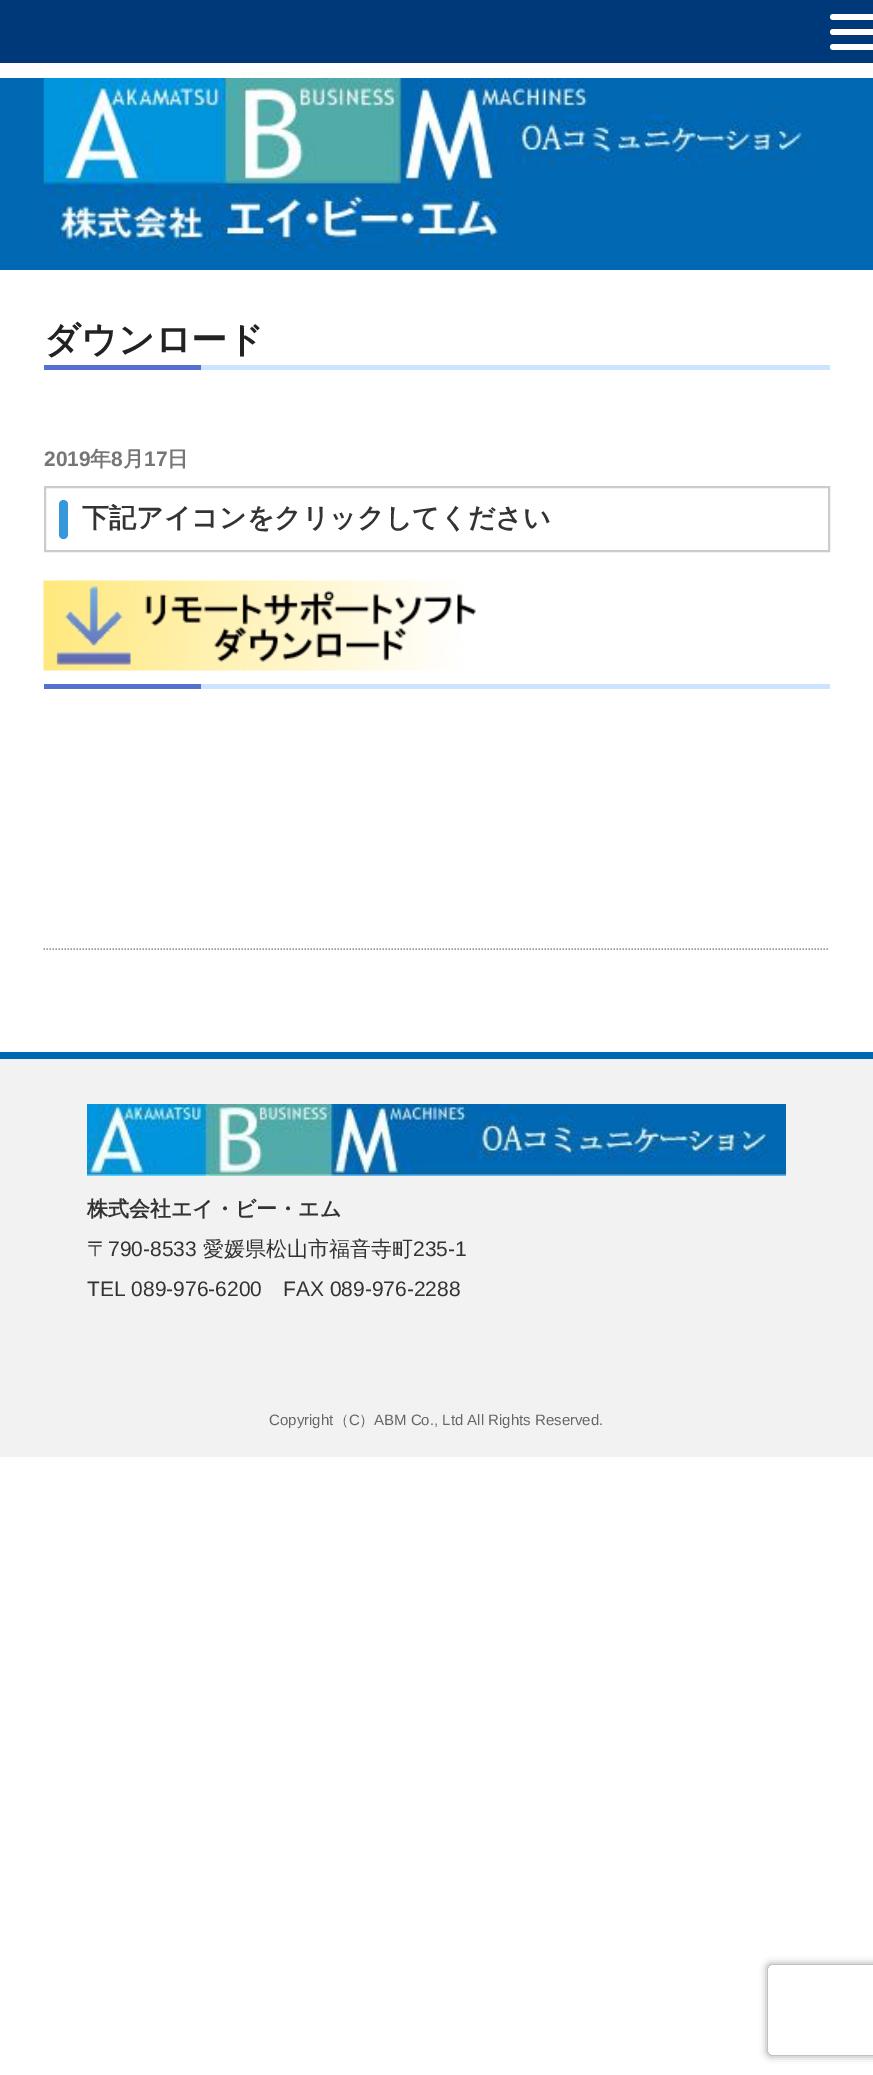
%!PS
<< /PageSize [873 2075] /PageUsesTransparency true >> setpagedevice
/rgb { dup -16 bitshift 255 div exch dup -8 bitshift 255 and 255 div exch 255 and 255 div setrgbcolor } def
/font { [ exch dup neg 0 0 3 -1 roll 0 0 ] selectfont } def
/text { moveto show } def
/alpha { dup .setfillconstantalpha .setstrokeconstantalpha } def
/roundrect { 5 dict begin { /r /h /w /y /x } { exch def } forall
  x r add y moveto x w add y 2 copy h add r arct x w add y h add x 1 index r arct
  x y h add x y r arct x y 2 copy exch w add exch r arct closepath end } def
/shadow { 12 dict begin { /a /b /q /h /w /y /x } { exch def } forall gsave /was 0 def
  9 -2 -9 { dup b mul 4 div /e exch def 1 sub .425 mul 2.718 exch exp 1 add a .99 .min exch div /now exch def
    1 1 now sub 1 was sub div sub alpha /was now def
    w h .min e 2 mul add 0 gt { x e sub y e sub w e 2 mul add h e 2 mul add
      q e add b .6 mul add w h .min 2 div e add .min 0 .max roundrect fill } if } for grestore end } def
/picture { 5 dict begin { /h /w /y /x /name } { exch def } forall
  gsave x y translate w h scale
  w h 8 [w 0 0 h 0 0] name (r) file false 3 colorimage grestore end } def
0 .pushpdf14devicefilter
0 2075 translate 1 -1 scale
4 setmiterlimit
/s1 { /WenQuanYiZenHei-Bold 36 font 16#222222 rgb } def
/s2 { /LiberationSans-Bold 21 font 16#767676 rgb } def
/s3 { /WenQuanYiZenHei-Bold 21 font 16#767676 rgb } def
/s4 { /WenQuanYiZenHei-Bold 27 font 16#333333 rgb } def
/s5 { /WenQuanYiZenHei-Bold 21 font 16#333333 rgb } def
/s6 { /WenQuanYiZenHei-Medium 21 font 16#333333 rgb } def
/s7 { /LiberationSans-Regular 21 font 16#333333 rgb } def
/s8 { /LiberationSans-Regular 15 font 16#666666 rgb } def
/s9 { /WenQuanYiZenHei-Medium 15 font 16#666666 rgb } def
16#FFFFFF rgb
0 0 873 2075 rectfill
16#00397A rgb
0 0 873 63 rectfill
16#FFFFFF rgb
830 14 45 6 3 roundrect fill
830 29 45 6 3 roundrect fill
830 44 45 6 3 roundrect fill
16#0168B3 rgb
0 78 873 192 rectfill
(pic1.raw) 43 78 771 173 picture
16#CCE4FF rgb
201 365 629 5 rectfill
s1
(ダウンロード) 44 352 text
16#5472CD rgb
44 365 157 5 rectfill
s2
(2019) 44 466 text
s3
(年) 90 466 text
s2
(8) 111 466 text
s3
(月) 123 466 text
s2
(17) 144 466 text
s3
(日) 167 466 text
16#CCCCCC rgb
2 setlinewidth
45 487 784 64 rectstroke
16#3498DB rgb
59 500 9 39 4.5 roundrect fill
s4
(下記アイコンをクリックしてください) 82 527 text
16#999999 rgb
1.5 setlinewidth
[1.5 1.5] 0 setdash
43.5 949 moveto 829.5 949 lineto stroke
16#CCE4FF rgb
201 684 629 5 rectfill
(pic2.raw) 43 580 433 91 picture
16#5472CD rgb
44 684 157 5 rectfill
16#F2F2F2 rgb
0 1059 873 398 rectfill
16#0067B2 rgb
0 1052 873 7 rectfill
(pic3.raw) 87 1104 699 72 picture
s5
(株式会社エイ・ビー・エム) 87 1216 text
s6
(〒) 87 1256 text
s7
(790-8533) 108 1256 text
s6
(愛媛県松山市福音寺町) 203 1256 text
s7
(235-1) 413 1256 text
(TEL 089-976-6200) 87 1296 text
(FAX 089-976-2288) 283 1296 text
s8
(Copyright) 269 1425 text
s9
(（) 334 1425 text
s8
(C) 349 1425 text
s9
(）) 359 1425 text
s8
(ABM Co., Ltd All Rights Reserved.) 374 1425 text
gsave
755 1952 moveto 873 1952 lineto 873 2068 lineto 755 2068 lineto closepath 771 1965 moveto 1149 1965 lineto 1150.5 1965 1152 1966.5 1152 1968 curveto 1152 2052 lineto 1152 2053.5 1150.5 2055 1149 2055 curveto 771 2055 lineto 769.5 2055 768 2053.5 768 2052 curveto 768 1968 lineto 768 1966.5 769.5 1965 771 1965 curveto closepath eoclip newpath
16#808080 rgb
768 1965 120 90 3 4 1 shadow
grestore
.poppdf14devicefilter showpage
